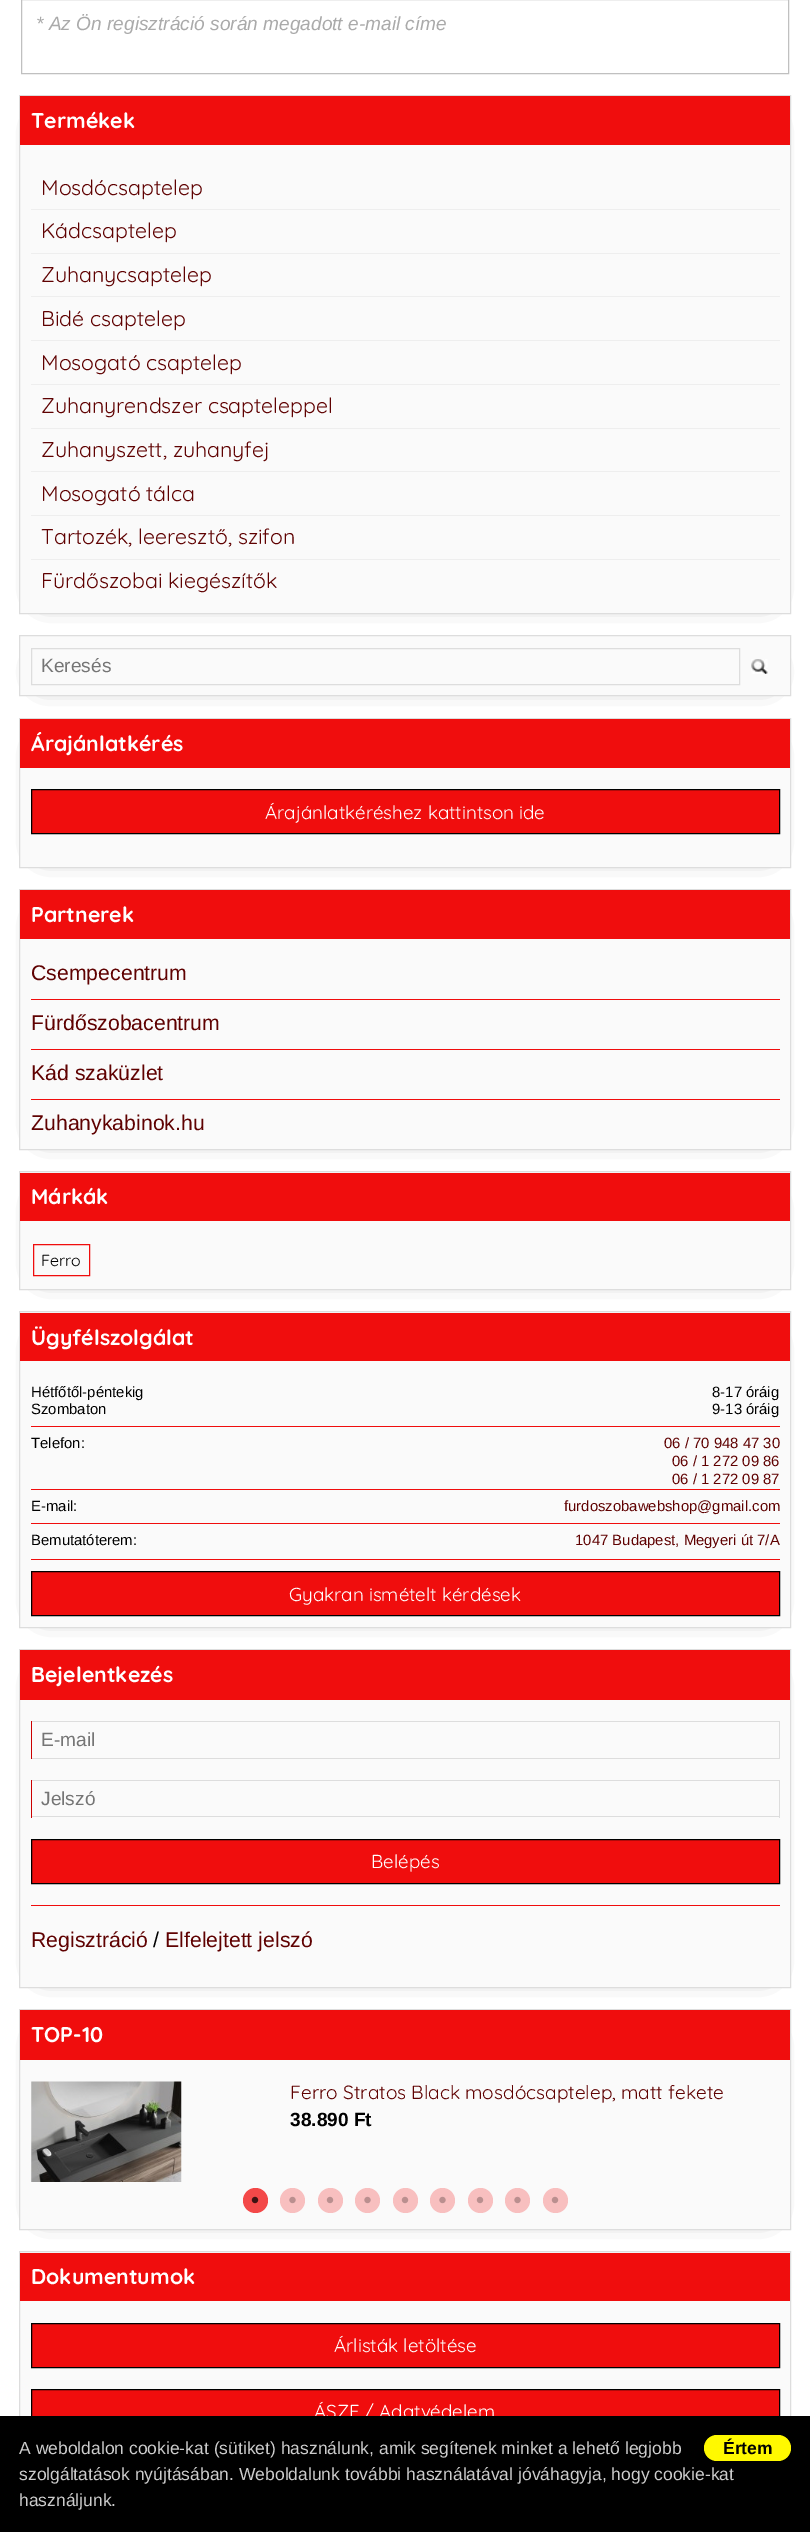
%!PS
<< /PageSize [810 2532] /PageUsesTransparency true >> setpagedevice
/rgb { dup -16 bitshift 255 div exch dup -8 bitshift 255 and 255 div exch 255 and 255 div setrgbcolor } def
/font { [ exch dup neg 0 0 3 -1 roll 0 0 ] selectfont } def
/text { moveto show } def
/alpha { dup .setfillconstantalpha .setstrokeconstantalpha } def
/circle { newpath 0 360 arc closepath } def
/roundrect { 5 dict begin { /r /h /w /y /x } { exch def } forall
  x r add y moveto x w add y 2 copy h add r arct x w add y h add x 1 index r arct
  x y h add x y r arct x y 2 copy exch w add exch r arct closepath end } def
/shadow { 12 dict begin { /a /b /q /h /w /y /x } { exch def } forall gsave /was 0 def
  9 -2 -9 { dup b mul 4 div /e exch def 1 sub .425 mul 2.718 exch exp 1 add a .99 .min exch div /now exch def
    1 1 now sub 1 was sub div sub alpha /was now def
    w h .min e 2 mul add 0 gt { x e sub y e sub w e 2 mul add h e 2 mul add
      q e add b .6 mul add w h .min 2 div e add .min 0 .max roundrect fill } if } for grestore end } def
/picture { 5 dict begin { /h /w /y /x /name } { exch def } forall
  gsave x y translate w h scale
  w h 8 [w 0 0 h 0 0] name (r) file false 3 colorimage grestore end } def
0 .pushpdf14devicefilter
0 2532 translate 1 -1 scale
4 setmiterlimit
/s1 { /LiberationSans-Italic 19.1 font 16#AAAAAA rgb } def
/s2 { /Quicksand-Bold 21.25 font 16#FFFFFF rgb } def
/s3 { /Quicksand-Regular 21.25 font 16#5F0101 rgb } def
/s4 { /LiberationSans-Regular 19.1 font 16#757575 rgb } def
/s5 { /Quicksand-Regular 18.75 font 16#FFFFFF rgb } def
/s6 { /LiberationSans-Regular 21.25 font 16#5F0101 rgb } def
/s7 { /Quicksand-Regular 16 font 16#000000 rgb } def
/s8 { /LiberationSans-Regular 14.9 font 16#000000 rgb } def
/s9 { /LiberationSans-Regular 14.9 font 16#5F0101 rgb } def
/s10 { /LiberationSans-Regular 21.25 font 16#000000 rgb } def
/s11 { /Quicksand-Regular 19.1 font 16#5F0101 rgb } def
/s12 { /LiberationSans-Bold 19.1 font 16#000000 rgb } def
/s13 { /LiberationSans-Regular 17.5 font 16#CCCCCC rgb } def
/s14 { /LiberationSans-Bold 17.5 font 16#000000 rgb } def
16#FFFFFF rgb
0 0 810 2532 rectfill
16#C0C0C0 rgb
21.5 -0.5 767 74 rectstroke
s1
(* Az Ön regisztráció során megadott e-mail címe) 36 30 text
16#000000 rgb
44 126 722 469 0 12.5 0.7 shadow
16#FAFAFA rgb
20 145 770 468 rectfill
16#DDDDDD rgb
19.5 95.5 771 518 rectstroke
16#F00D0D rgb
20 96 770 49 rectfill
s2
(Termékek) 31 128 text
s3
(Mosdócsaptelep) 41 195 text
16#EEEEEE rgb
31 209 749 1 rectfill
s3
(Kádcsaptelep) 41 238 text
16#EEEEEE rgb
31 253 749 1 rectfill
s3
(Zuhanycsaptelep) 41 282 text
16#EEEEEE rgb
31 296 749 1 rectfill
s3
(Bidé csaptelep) 41 326 text
16#EEEEEE rgb
31 340 749 1 rectfill
s3
(Mosogató csaptelep) 41 370 text
16#EEEEEE rgb
31 384 749 1 rectfill
s3
(Zuhanyrendszer csapteleppel) 41 413 text
16#EEEEEE rgb
31 428 749 1 rectfill
s3
(Zuhanyszett, zuhanyfej) 41 457 text
16#EEEEEE rgb
31 471 749 1 rectfill
s3
(Mosogató tálca) 41 501 text
16#EEEEEE rgb
31 515 749 1 rectfill
s3
(Tartozék, leeresztő, szifon) 41 544 text
16#EEEEEE rgb
31 559 749 1 rectfill
s3
(Fürdőszobai kiegészítők) 41 588 text
16#000000 rgb
44 666 722 12 0 12.5 0.7 shadow
16#FAFAFA rgb
19.5 635.5 moveto 790.5 635.5 lineto 790.5 695.5 lineto 19.5 695.5 lineto closepath gsave fill grestore
16#DDDDDD rgb
stroke
31.5 648.5 708 36 rectstroke
s4
(Keresés) 41 672 text
(pic1.raw) 751 659 17 15 picture
16#000000 rgb
44 749 722 100 0 12.5 0.7 shadow
16#FAFAFA rgb
20 768 770 99 rectfill
16#DDDDDD rgb
19.5 718.5 771 149 rectstroke
16#F00D0D rgb
20 719 770 49 rectfill
s2
(Árajánlatkérés) 31 751 text
16#F00D0D rgb
31.5 789.5 moveto 779.5 789.5 lineto 779.5 833.5 lineto 31.5 833.5 lineto closepath gsave fill grestore
16#000000 rgb
stroke
s5
(Árajánlatkéréshez kattintson ide) 265 819 text
16#000000 rgb
44 920 722 211 0 12.5 0.7 shadow
16#FAFAFA rgb
20 939 770 210 rectfill
16#DDDDDD rgb
19.5 889.5 771 260 rectstroke
16#F00D0D rgb
20 890 770 49 rectfill
s2
(Partnerek) 31 922 text
s6
(Csempecentrum) 31 980 text
16#F00D0D rgb
31 999 749 1 rectfill
s6
(Fürdőszobacentrum) 31 1030 text
16#F00D0D rgb
31 1049 749 1 rectfill
s6
(Kád szaküzlet) 31 1080 text
16#F00D0D rgb
31 1099 749 1 rectfill
s6
(Zuhanykabinok.hu) 31 1130 text
16#000000 rgb
44 1203 722 68 0 12.5 0.7 shadow
16#FAFAFA rgb
19.5 1171.5 moveto 790.5 1171.5 lineto 790.5 1289.5 lineto 19.5 1289.5 lineto closepath gsave fill grestore
16#DDDDDD rgb
stroke
16#F00D0D rgb
20 1173 770 48 rectfill
s2
(Márkák) 31 1204 text
16#F00D0D rgb
33.5 1244.5 56 31 rectstroke
s7
(Ferro) 41 1266 text
44 1343 722 266 0 12.5 0.7 shadow
16#FAFAFA rgb
19.5 1311.5 moveto 790.5 1311.5 lineto 790.5 1627.5 lineto 19.5 1627.5 lineto closepath gsave fill grestore
16#DDDDDD rgb
stroke
16#F00D0D rgb
20 1313 770 48 rectfill
s2
(Ügyfélszolgálat) 31 1345 text
s8
(Hétfőtől-péntekig) 31 1397 text
(8-17 óráig) 712 1397 text
(Szombaton) 31 1414 text
(9-13 óráig) 712 1414 text
16#F00D0D rgb
31 1426 749 1 rectfill
s8
(Telefon:) 31 1448 text
s9
(06 / 70 948 47 30) 664 1448 text
(06 / 1 272 09 86) 672 1466 text
(06 / 1 272 09 87) 672 1484 text
16#F00D0D rgb
31 1489 749 1 rectfill
s8
(E-mail:) 31 1511 text
s9
(furdoszobawebshop@gmail.com) 564 1511 text
16#F00D0D rgb
31 1523 749 1 rectfill
s8
(Bemutatóterem:) 31 1545 text
s9
(1047 Budapest, Megyeri út 7/A) 575 1545 text
16#F00D0D rgb
31 1559 749 1 rectfill
31.5 1571.5 moveto 779.5 1571.5 lineto 779.5 1615.5 lineto 31.5 1615.5 lineto closepath gsave fill grestore
16#000000 rgb
stroke
s5
(Gyakran ismételt kérdések) 289 1601 text
16#000000 rgb
44 1680 722 289 0 12.5 0.7 shadow
16#FAFAFA rgb
20 1700 770 287 rectfill
16#DDDDDD rgb
19.5 1649.5 771 338 rectstroke
16#F00D0D rgb
20 1650 770 50 rectfill
s2
(Bejelentkezés) 31 1682 text
16#DDDDDD rgb
31 1721 749 1 rectfill
779 1721 1 38 rectfill
31 1758 749 1 rectfill
16#CC0000 rgb
31 1721 1 38 rectfill
s4
(E-mail) 41 1746 text
16#DDDDDD rgb
31 1780 749 1 rectfill
779 1780 1 38 rectfill
31 1816 749 1 rectfill
16#CC0000 rgb
31 1780 1 38 rectfill
s4
(Jelszó) 41 1805 text
16#F00D0D rgb
31.5 1839.5 moveto 779.5 1839.5 lineto 779.5 1883.5 lineto 31.5 1883.5 lineto closepath gsave fill grestore
16#000000 rgb
stroke
s5
(Belépés) 371 1868 text
16#F00D0D rgb
31 1905 749 1 rectfill
s6
(Regisztráció) 31 1947 text
s10
(/) 153 1947 text
s6
(Elfelejtett jelszó) 165 1947 text
16#000000 rgb
44 2040 722 171 0 12.5 0.7 shadow
16#FAFAFA rgb
20 2060 770 169 rectfill
16#DDDDDD rgb
19.5 2009.5 771 220 rectstroke
16#F00D0D rgb
20 2010 770 50 rectfill
s2
(TOP-10) 31 2042 text
(pic2.raw) 31 2081 151 101 picture
s11
(Ferro Stratos Black mosdócsaptelep, matt fekete) 290 2099 text
s12
(38.890 Ft) 290 2126 text
16#F34848 rgb
255.5 2200.5 12.5 circle fill
(pic3.raw) 251 2196 8 8 picture
16#F8BFBF rgb
292.5 2200.5 12.5 circle fill
(pic4.raw) 289 2196 7 8 picture
330.5 2200.5 12.5 circle fill
(pic5.raw) 326 2196 8 8 picture
367.5 2200.5 12.5 circle fill
(pic4.raw) 364 2196 7 8 picture
405.5 2200.5 12.5 circle fill
(pic5.raw) 401 2196 8 8 picture
442.5 2200.5 12.5 circle fill
(pic4.raw) 439 2196 7 8 picture
480.5 2200.5 12.5 circle fill
(pic5.raw) 476 2196 8 8 picture
517.5 2200.5 12.5 circle fill
(pic4.raw) 514 2196 7 8 picture
555.5 2200.5 12.5 circle fill
(pic5.raw) 551 2196 8 8 picture
16#FAFAFA rgb
20 2252 770 164 rectfill
16#DDDDDD rgb
19.5 2251.5 771 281 rectstroke
16#F00D0D rgb
20 2253 770 48 rectfill
s2
(Dokumentumok) 31 2284 text
16#F00D0D rgb
31.5 2323.5 moveto 779.5 2323.5 lineto 779.5 2367.5 lineto 31.5 2367.5 lineto closepath gsave fill grestore
16#000000 rgb
stroke
s5
(Árlisták letöltése) 334 2352 text
16#F00D0D rgb
32 2390 747 26 rectfill
16#000000 rgb
31.5 2389.5 748 44 rectstroke
s5
(ÁSZF / Adatvédelem) 314 2418 text
16#000000 rgb
0 2416 810 116 rectfill
s13
(A weboldalon cookie-kat \(sütiket\) használunk, amik segítenek minket a lehető legjobb) 19 2454 text
16#FFF900 rgb
704 2435 87 26 13 roundrect fill
s14
(Értem) 723 2454 text
s13
(szolgáltatások nyújtásában. Weboldalunk további használatával jóváhagyja, hogy cookie-kat) 19 2480 text
(használjunk.) 19 2506 text
.poppdf14devicefilter showpage
